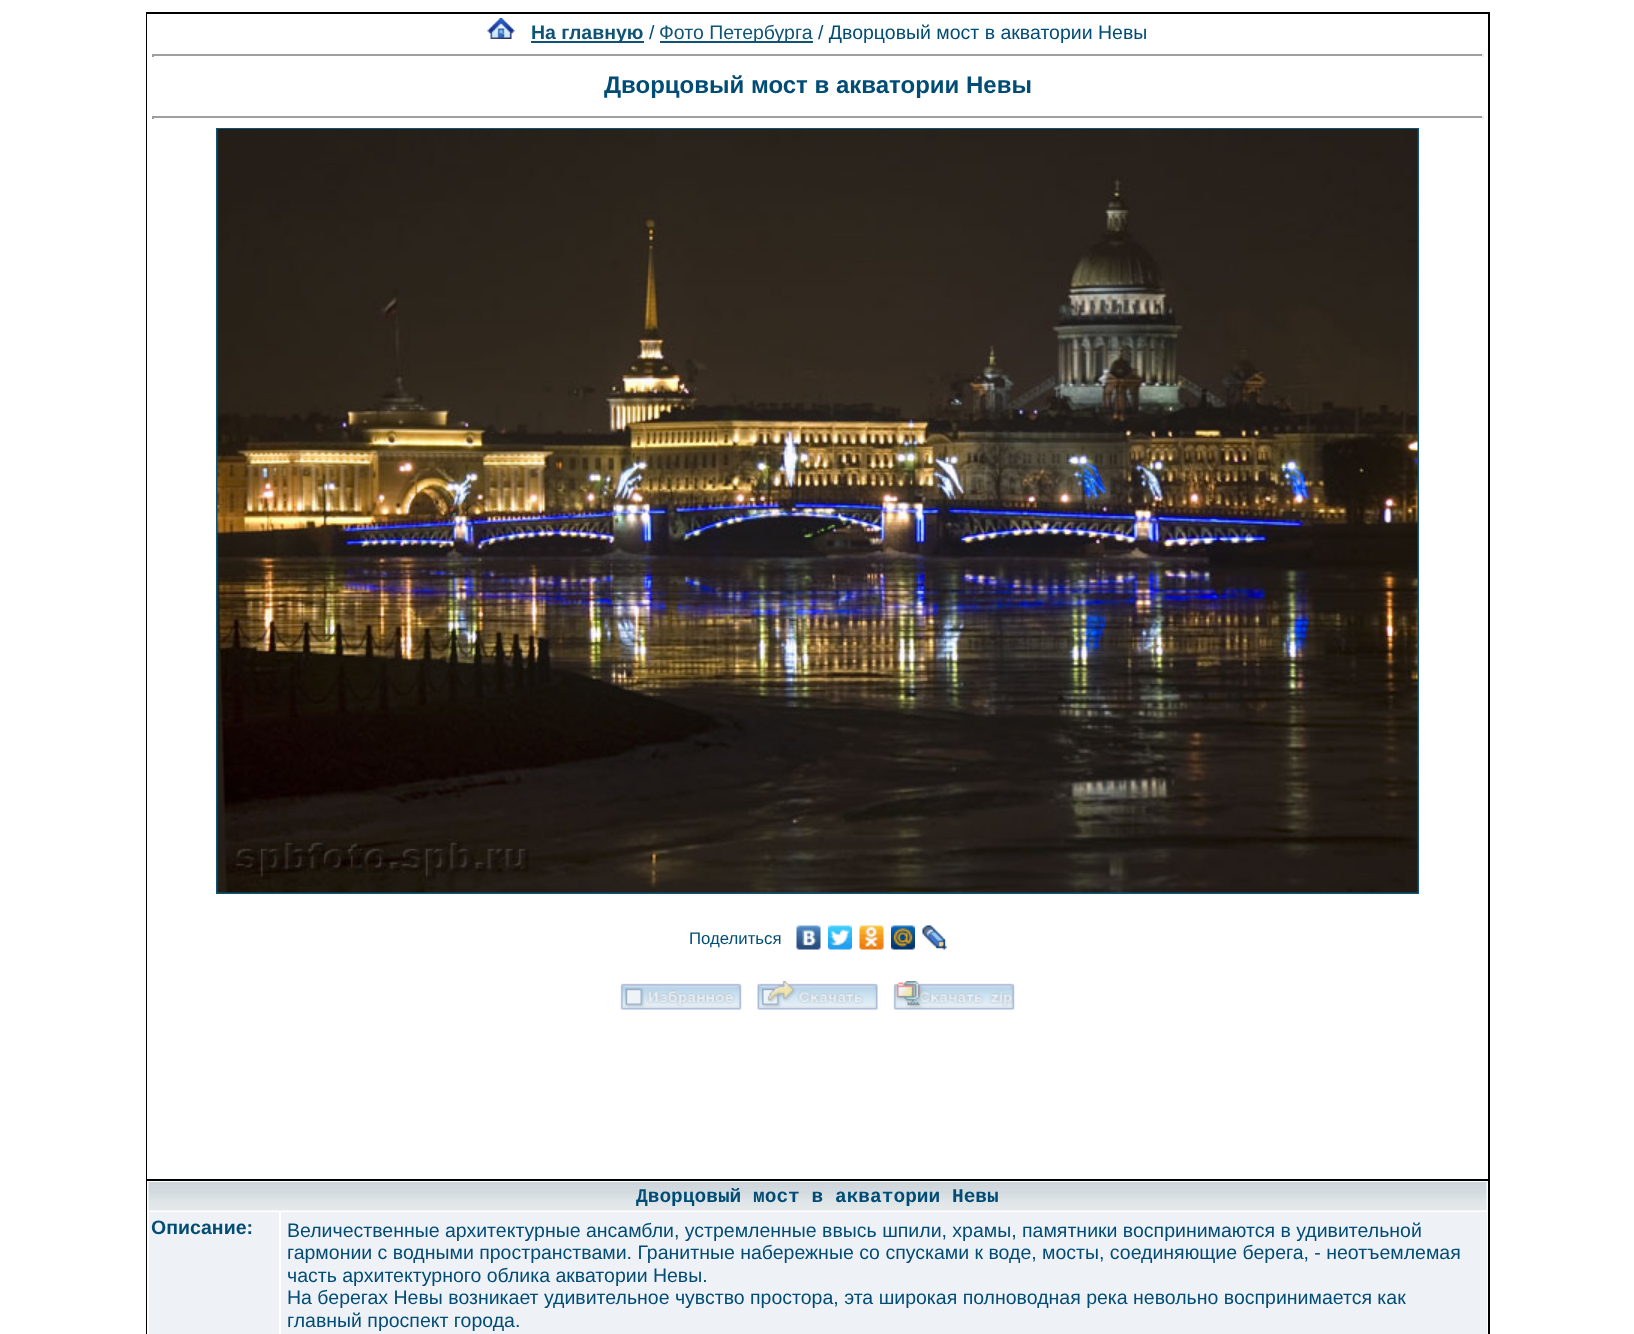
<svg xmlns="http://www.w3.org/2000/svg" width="1634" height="1334">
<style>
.a{font:bold 19.5px Liberation Sans;fill:#0f5475}
.b{font:19.5px Liberation Sans;fill:#004c75}
.c{font:19.5px Liberation Sans;fill:#0f5475}
.d{font:bold 24px Liberation Sans;fill:#004c75}
.e{font:16.75px Liberation Sans;fill:#004c75}
.f{font:bold 19.5px Liberation Mono;fill:#004c75}
.g{font:bold 19.5px Liberation Sans;fill:#004c75}
</style>
<rect width="100%" height="100%" fill="#fff"/>
<path fill="#000" d="M146 12h1344v1322H146z"/>
<path fill="#fff" d="M147 14h1341v1320H147z"/>
<image href="1.png" x="487" y="18" width="28" height="21"/>
<path fill="#0f5475" d="M531 41h113v2H531z"/>
<path fill="#0f5475" d="M660 41h153v2H660z"/>
<path fill="#9f9f9f" d="M152 54h1332v2H152z"/>
<path fill="#eee" d="M1482 54h2v3H1482z"/>
<path fill="#9f9f9f" d="M152 54h2v3H152z"/>
<path fill="#9f9f9f" d="M152 116h1332v2H152z"/>
<path fill="#eee" d="M1482 116h2v3H1482z"/>
<path fill="#9f9f9f" d="M152 116h2v3H152z"/>
<path fill="none" stroke="#0f5475" stroke-width="2" d="M217 129h1201v764H217z"/>
<image href="2.png" x="217" y="129" width="1201" height="764"/>
<image href="3.png" x="796" y="925" width="25" height="25"/>
<image href="4.png" x="828" y="925" width="24" height="25"/>
<image href="5.png" x="859" y="925" width="25" height="25"/>
<image href="6.png" x="891" y="925" width="24" height="25"/>
<image href="7.png" x="922" y="925" width="25" height="25"/>
<image href="8.png" x="620" y="983" width="122" height="27"/>
<image href="9.png" x="757" y="981" width="121" height="29"/>
<image href="10.png" x="893" y="981" width="122" height="29"/>
<path fill="#000" d="M147 1179h1341v2H147z"/>
<image href="11.png" x="148" y="1182" width="1339" height="29"/>
<path fill="#eef1f6" d="M149 1212h130v122H149z"/>
<path fill="#eef1f6" d="M281 1212h1206v122H281z"/>
<text class="a" x="531" y="39">На главную</text>
<text class="b" x="649" y="39">/</text>
<text class="c" x="659" y="39">Фото Петербурга</text>
<text class="b" x="818" y="39">/ Дворцовый мост в акватории Невы</text>
<text class="d" x="604" y="93">Дворцовый мост в акватории Невы</text>
<text class="e" x="689" y="944">Поделиться</text>
<text class="f" x="636" y="1202">Дворцовый мост в акватории Невы</text>
<text class="g" x="151" y="1234">Описание:</text>
<text class="b" x="287" y="1237">Величественные архитектурные ансамбли, устремленные ввысь шпили, храмы, памятники воспринимаются в удивительной</text>
<text class="b" x="287" y="1259">гармонии с водными пространствами. Гранитные набережные со спусками к воде, мосты, соединяющие берега, - неотъемлемая</text>
<text class="b" x="287" y="1282">часть архитектурного облика акватории Невы.</text>
<text class="b" x="287" y="1304">На берегах Невы возникает удивительное чувство простора, эта широкая полноводная река невольно воспринимается как</text>
<text class="b" x="287" y="1327">главный проспект города.</text>
</svg>
